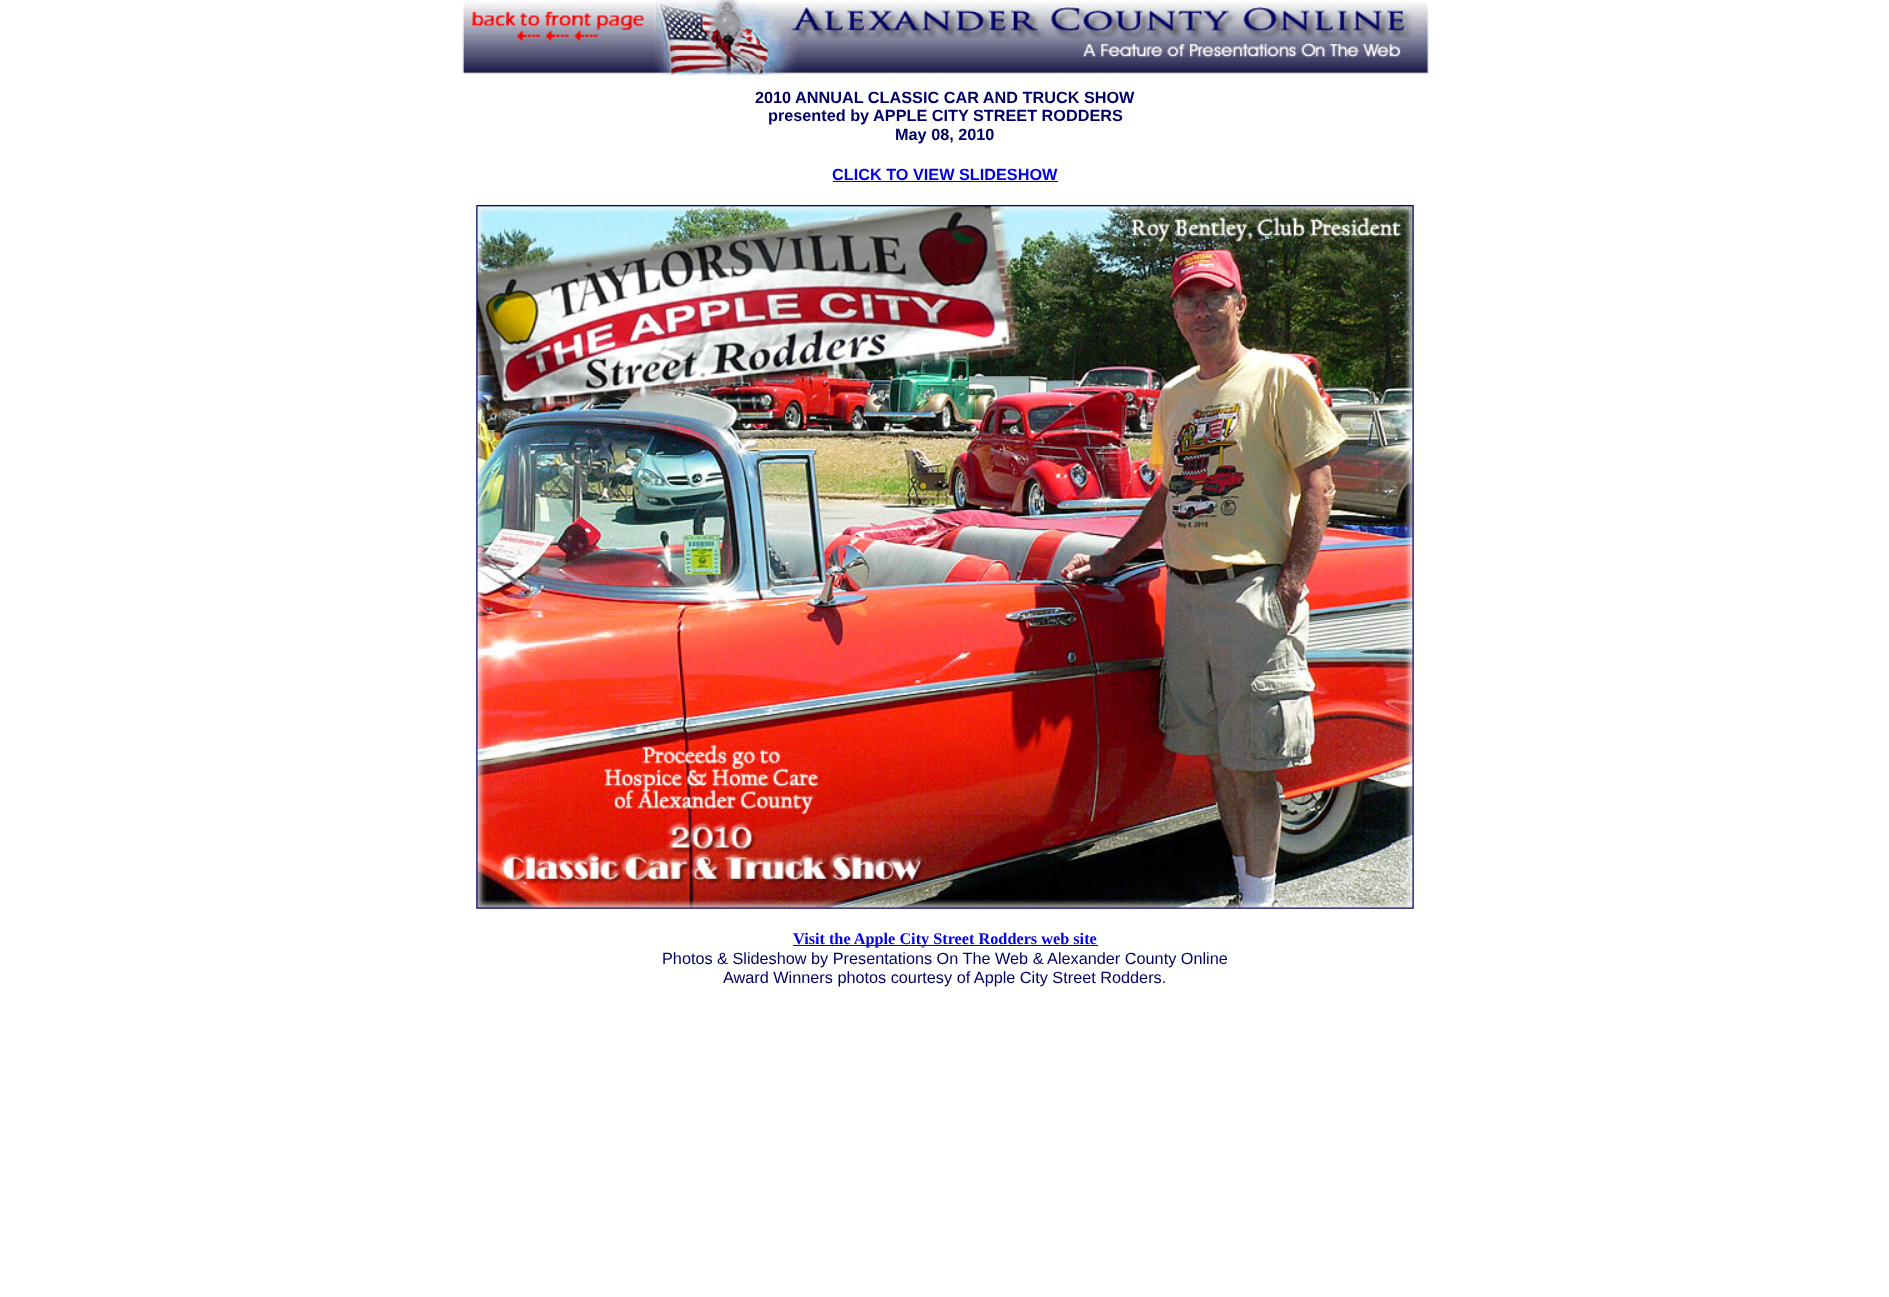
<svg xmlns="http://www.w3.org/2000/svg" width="1889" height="1297">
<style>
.a{font:bold 16.25px Liberation Sans;fill:#006}
.b{font:bold 16.25px Liberation Sans;fill:#00e}
.c{font:bold 16.25px Liberation Serif;fill:#00e}
.d{font:16.25px Liberation Sans;fill:#006}
</style>
<rect width="100%" height="100%" fill="#fff"/>
<image href="1.png" x="462" y="0" width="967" height="75"/>
<path fill="#00e" d="M833 181h225v1H833z"/>
<image href="2.png" x="476" y="205" width="938" height="704"/>
<path fill="#00e" d="M793 945h305v1H793z"/>
<text class="a" x="755" y="103">2010</text>
<text class="a" x="795" y="103">ANNUAL CLASSIC CAR AND TRUCK SHOW</text>
<text class="a" x="768" y="121">presented by APPLE CITY STREET RODDERS</text>
<text class="a" x="895" y="140">May 08, 2010</text>
<text class="b" x="832" y="180">CLICK TO VIEW SLIDESHOW</text>
<text class="c" x="793" y="944">Visit the Apple City Street Rodders web site</text>
<text class="d" x="662" y="964">Photos &amp; Slideshow by Presentations On The Web &amp; Alexander County Online</text>
<text class="d" x="723" y="983">Award Winners photos courtesy of Apple City Street Rodders.</text>
</svg>
